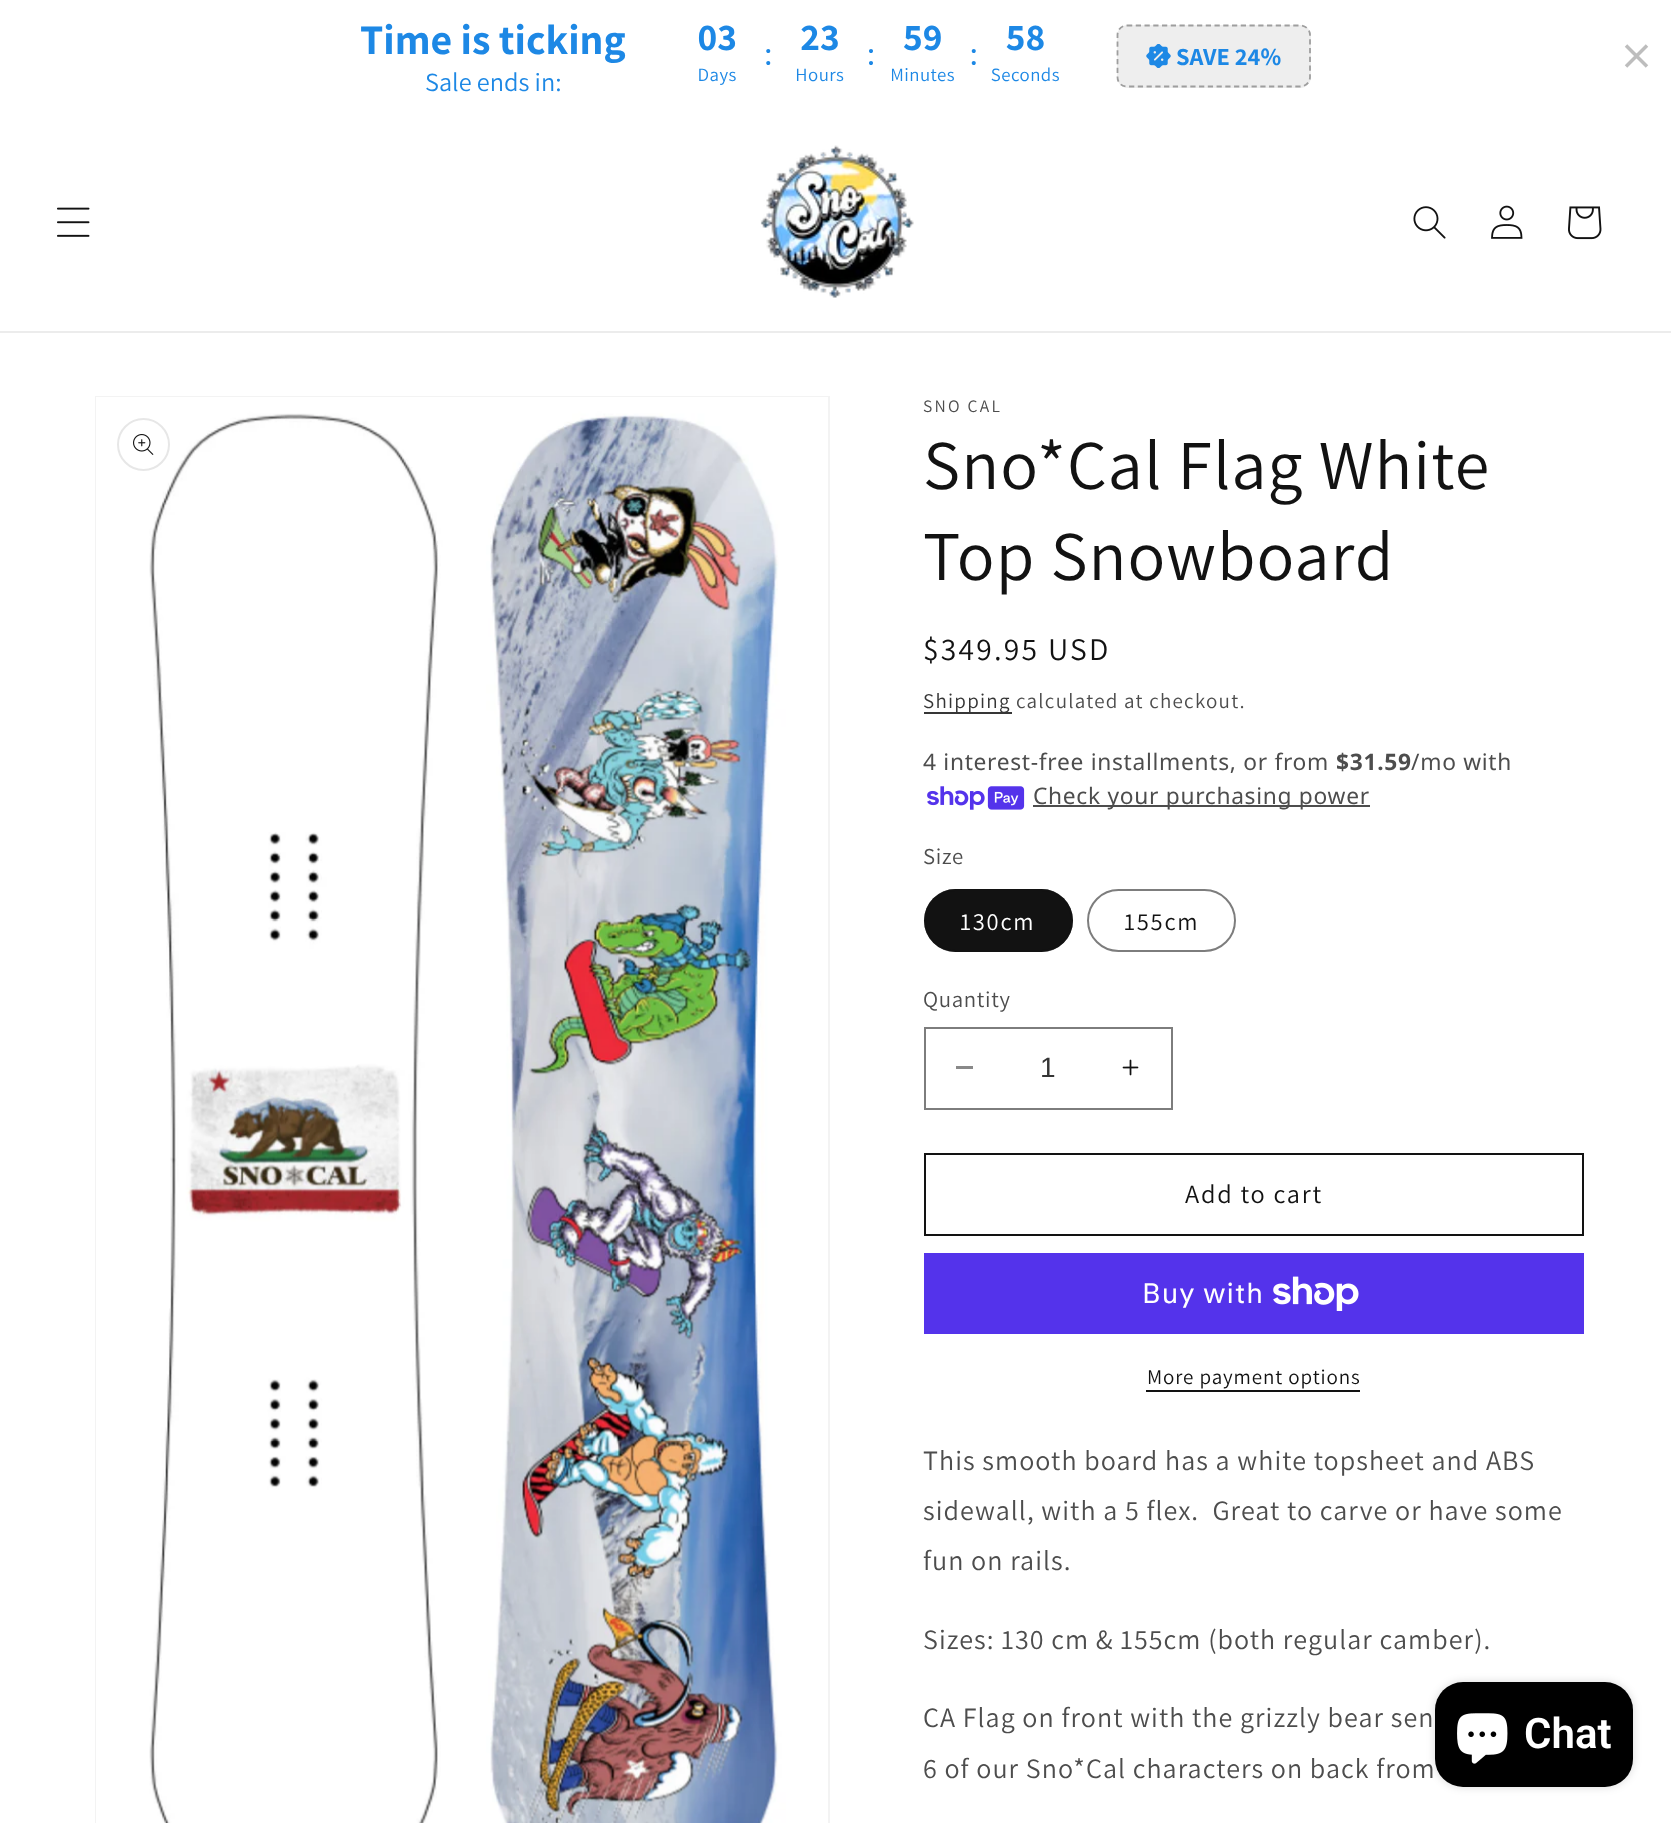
<svg xmlns="http://www.w3.org/2000/svg" width="1671" height="1823">
<style>
.a{font:bold 42px Assistant;fill:#1d88e5}
.b{font:26.25px Assistant;fill:#1d88e5}
.c{font:bold 24.5px Assistant;fill:#1d88e5}
.d{font:17.5px Assistant;letter-spacing:2.25px;fill:#4d4d4d}
.e{font:70px Assistant;letter-spacing:1.05px;fill:#121212}
.f{font:31.5px Assistant;letter-spacing:2.25px;fill:#121212}
.g{font:21px Assistant;letter-spacing:1.25px;fill:#353535}
.h{font:21px Assistant;letter-spacing:1.25px;fill:#4d4d4d}
.i{font:22.75px Noto Sans;letter-spacing:0.7px;fill:#4d4d4d}
.j{font:bold 22.75px Noto Sans;letter-spacing:0.7px;fill:#4d4d4d}
.k{font:22.75px Assistant;letter-spacing:0.7px;fill:#4d4d4d}
.l{font:24.5px Assistant;letter-spacing:1.75px;fill:#fff}
.m{font:24.5px Assistant;letter-spacing:1.75px;fill:#121212}
.n{font:28px Liberation Sans;fill:#353535}
.o{font:26.25px Assistant;letter-spacing:1.75px;fill:#121212}
.p{font:28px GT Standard;letter-spacing:1.05px;fill:#fff}
.q{font:21px Assistant;letter-spacing:0.9px;fill:#121212}
.r{font:28px Assistant;letter-spacing:1.05px;fill:#4d4d4d}
.s{font:600 42px Roboto;fill:#fff}
</style>
<rect width="100%" height="100%" fill="#fff"/>
<image href="1.png" x="698" y="25" width="361" height="60"/>
<rect fill="#eee" x="1117" y="25" width="194" height="63" rx="11"/>
<path fill="none" stroke="#9e9e9e" stroke-width="1.8" stroke-dasharray="5.25 3.5" d="M1127 25.5h173c5.5 0 10 4 10 9.5v42c0 5.5-4.5 9.5-10 9.5h-173c-5.5 0-9.5-4-9.5-9.5v-42c0-5.5 4-9.5 9.5-9.5z"/>
<image href="2.png" x="1146" y="44" width="25" height="24"/>
<path fill="none" stroke="#bdbdbd" stroke-width="3.5" d="M1647 45.5l-21 21m21 0l-21-21"/>
<path fill="#ececec" d="M0 331h1671v2H0z"/>
<image href="3.png" x="57" y="207" width="33" height="30"/>
<image href="4.png" x="760" y="145" width="154" height="153"/>
<image href="5.png" x="1413" y="206" width="33" height="33"/>
<image href="6.png" x="1491" y="205" width="32" height="34"/>
<image href="7.png" x="1568" y="206" width="34" height="34"/>
<path fill="none" stroke="#f3f3f3" stroke-width="2" d="M96 397h733v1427H96z"/>
<image href="8.png" x="96" y="397" width="732" height="1426"/>
<circle fill="none" stroke="#e7e7e7" stroke-width="2" cx="143.5" cy="444.5" r="25.5"/>
<image href="9.png" x="133" y="434" width="21" height="21"/>
<path fill="#363636" d="M924 712h88v2H924z"/>
<image href="10.png" x="927" y="786" width="98" height="24"/>
<path fill="#4d4d4d" d="M1033 805h337v2H1033z"/>
<rect fill="#121212" x="924" y="889" width="149" height="63" rx="31.5"/>
<rect fill="none" stroke="#1212128c" stroke-width="2" x="925" y="890" width="147" height="61" rx="30.5"/>
<rect fill="none" stroke="#7d7d7d" stroke-width="2" x="1088" y="890" width="147" height="61" rx="30.5"/>
<path fill="#898989" d="M956 1066h17v3H956z"/>
<image href="11.png" x="1122" y="1059" width="17" height="17"/>
<path fill="none" stroke="#7d7d7d" stroke-width="2" d="M925 1028h247v81H925z"/>
<path fill="none" stroke="#121212" stroke-width="2" d="M925 1154h658v81H925z"/>
<path fill="#5433eb" d="M924 1253h660v81H924z"/>
<image href="12.png" x="1273" y="1276" width="86" height="35"/>
<path fill="#121212" d="M1146 1390h214v2H1146z"/>
<rect fill="#00000026" filter="blur(4.5px)" x="1435" y="1682" width="198" height="105" rx="28"/>
<rect fill="#000" x="1435" y="1682" width="198" height="105" rx="28"/>
<image href="13.png" x="1457" y="1713" width="51" height="51"/>
<text class="a" x="360" y="54">Time is ticking</text>
<text class="b" x="425" y="91">Sale ends in:</text>
<text class="c" x="1176" y="65">SAVE 24%</text>
<text class="d" x="923" y="412">SNO CAL</text>
<text class="e" x="923" y="489">Sno*Cal Flag White</text>
<text class="e" x="923" y="580">Top Snowboard</text>
<text class="f" x="923" y="660">$349.95 USD</text>
<text class="g" x="923" y="708">Shipping</text>
<text class="h" x="1016" y="708">calculated at checkout.</text>
<text class="i" x="923" y="770">4 interest-free installments, or from</text>
<text class="j" x="1336" y="770">$31.59</text>
<text class="i" x="1411" y="770">/mo with</text>
<text class="i" x="1033" y="804">Check your purchasing power</text>
<text class="k" x="923" y="864">Size</text>
<text class="l" x="960" y="930">130cm</text>
<text class="m" x="1124" y="930">155cm</text>
<text class="k" x="923" y="1007">Quantity</text>
<text class="n" x="1040" y="1077">1</text>
<text class="o" x="1185" y="1203">Add to cart</text>
<text class="p" x="1142" y="1303">Buy with</text>
<text class="q" x="1147" y="1384">More payment options</text>
<text class="r" x="923" y="1470">This smooth board has a white topsheet and ABS</text>
<text class="r" xml:space="preserve" x="923" y="1520">sidewall, with a 5 flex.  Great to carve or have some</text>
<text class="r" x="923" y="1570">fun on rails.</text>
<text class="r" x="923" y="1649">Sizes: 130 cm &amp; 155cm (both regular camber).</text>
<text class="r" x="923" y="1727">CA Flag on front with the grizzly bear sen</text>
<text class="r" x="923" y="1778">6 of our Sno*Cal characters on back from</text>
<text class="s" x="1524" y="1748">Chat</text>
</svg>
